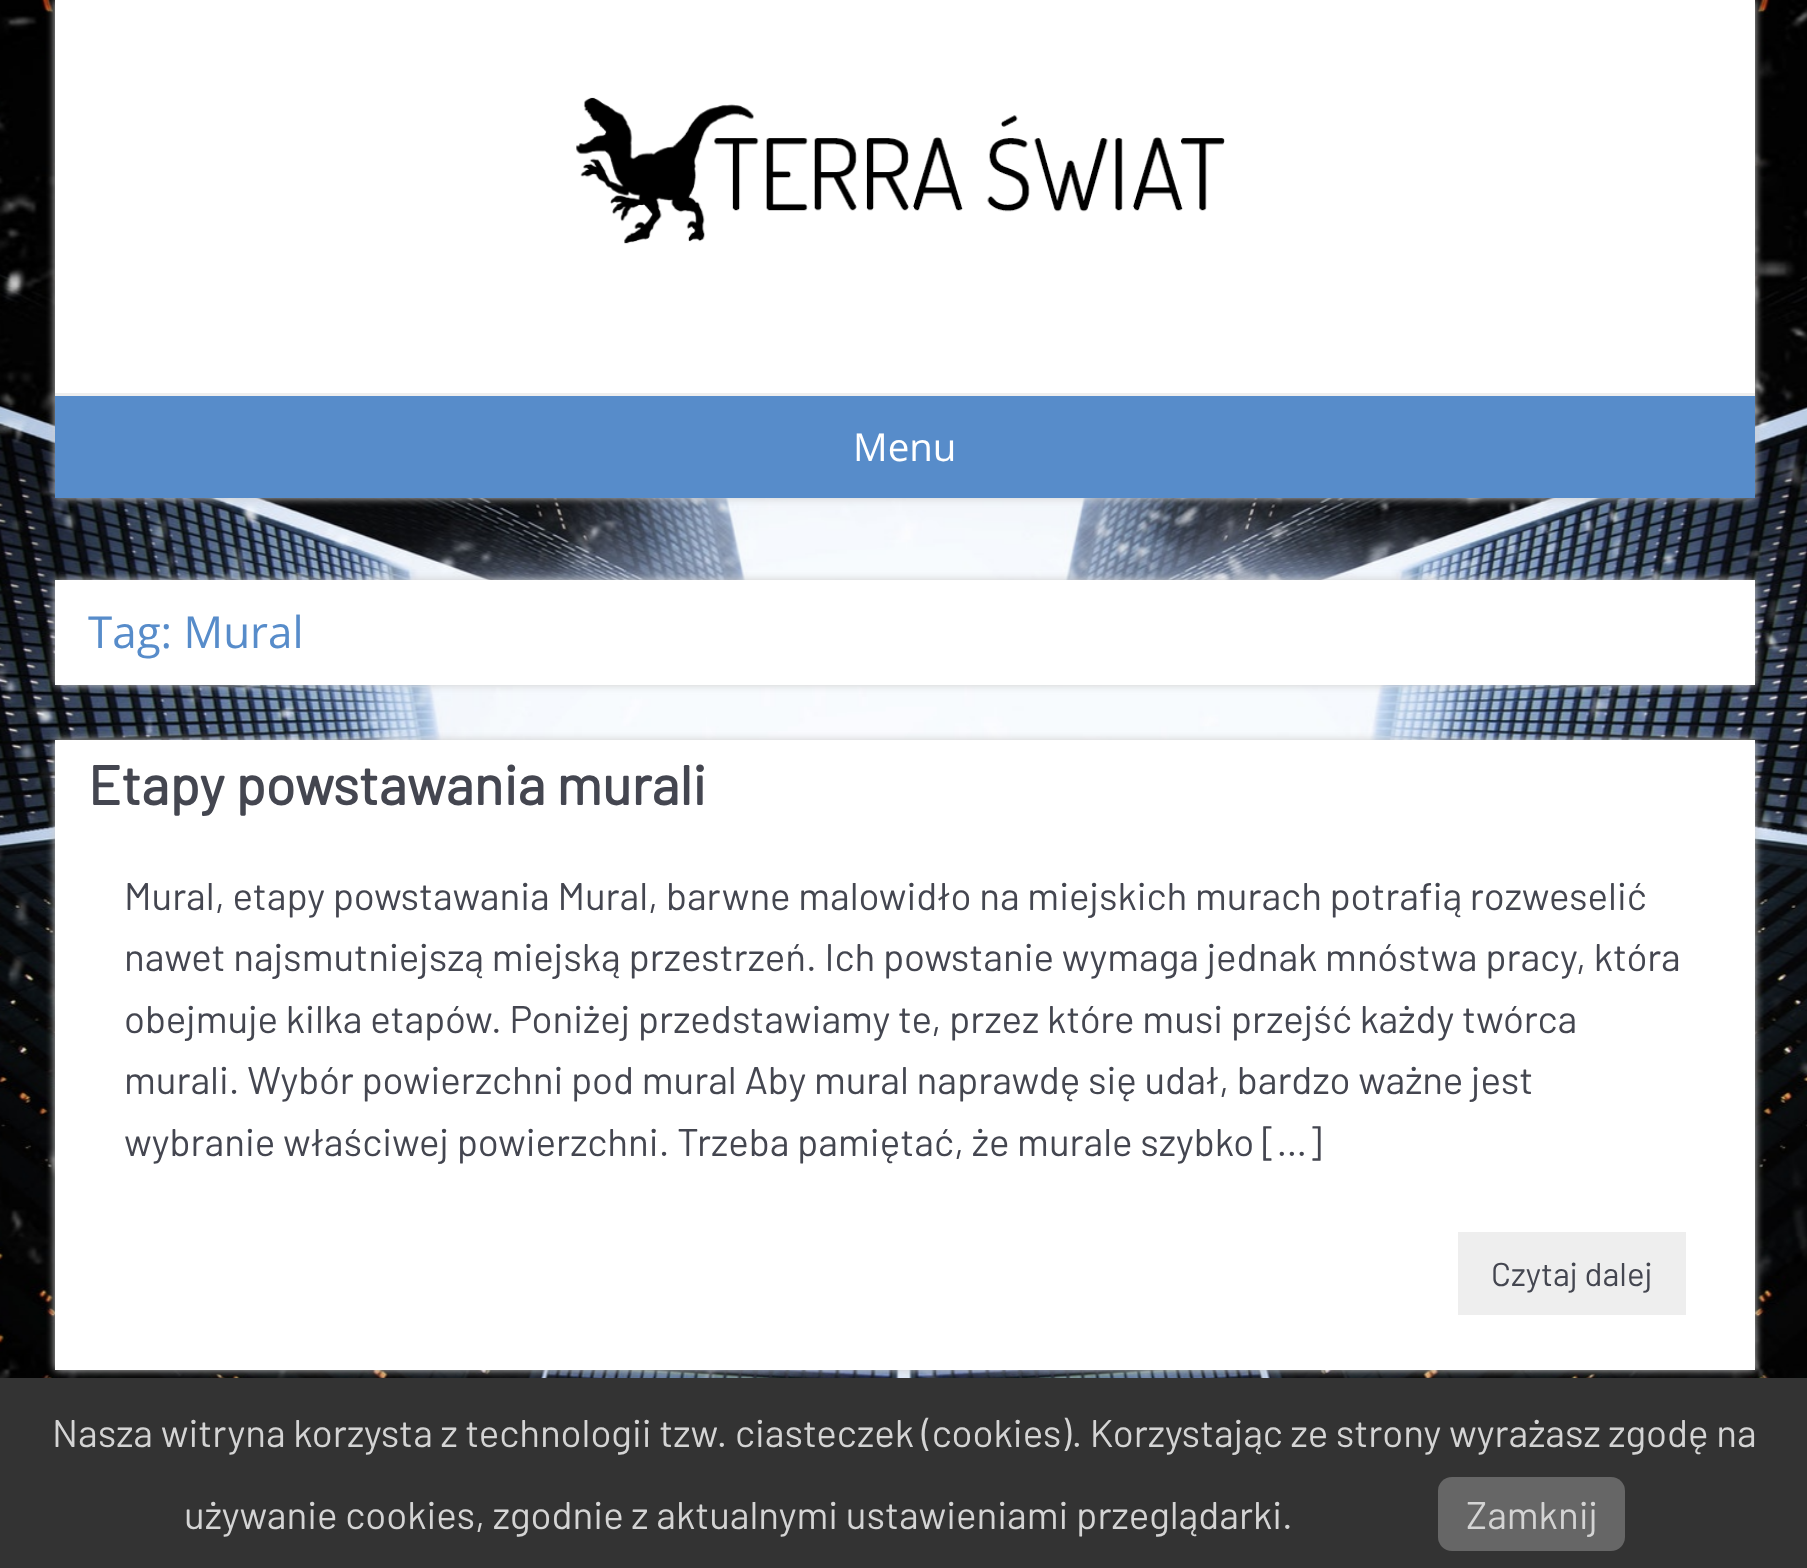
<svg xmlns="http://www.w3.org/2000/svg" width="1807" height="1568">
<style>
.a{font:38.5px Open Sans;fill:#fff}
.b{font:44px Open Sans;fill:#578cca}
.c{font:bold 55px Barlow;fill:#444650}
.d{font:38.5px Barlow;fill:#444650}
.e{font:33px Barlow;fill:#444650}
.f{font:38.5px Barlow;fill:#d4d4d4}
</style>
<rect width="100%" height="100%" fill="#fff"/>
<image href="1.png" x="0" y="0" width="1807" height="1378"/>
<path fill="#ccc" filter="blur(4px)" d="M55 0h1700v498H55z"/>
<path fill="#fff" d="M55 0h1700v393H55z"/>
<image href="2.png" x="576" y="97" width="649" height="147"/>
<path fill="#eee" d="M55 393h1700v3H55z"/>
<path fill="#578cca" d="M55 396h1700v102H55z"/>
<path fill="#ccc" filter="blur(4px)" d="M55 580h1700v105H55z"/>
<path fill="#fff" d="M55 580h1700v105H55z"/>
<path fill="#ccc" filter="blur(4px)" d="M55 740h1700v630H55z"/>
<path fill="#fff" d="M55 740h1700v630H55z"/>
<path fill="#eee" d="M1458 1232h228v83H1458z"/>
<path fill="#333" d="M0 1378h1807v190H0z"/>
<rect fill="#666" x="1438" y="1477" width="187" height="74" rx="14"/>
<text class="a" x="853" y="461">Menu</text>
<text class="b" x="88" y="648">Tag: Mural</text>
<text class="c" x="88" y="805">Etapy powstawania murali</text>
<text class="d" x="124" y="910">Mural, etapy powstawania Mural, barwne malowidło na miejskich murach potrafią rozweselić</text>
<text class="d" x="124" y="971">nawet najsmutniejszą miejską przestrzeń. Ich powstanie wymaga jednak mnóstwa pracy, która</text>
<text class="d" x="124" y="1033">obejmuje kilka etapów. Poniżej przedstawiamy te, przez które musi przejść każdy twórca</text>
<text class="d" x="124" y="1094">murali. Wybór powierzchni pod mural Aby mural naprawdę się udał, bardzo ważne jest</text>
<text class="d" x="124" y="1156">wybranie właściwej powierzchni. Trzeba pamiętać, że murale szybko […]</text>
<text class="e" x="1491" y="1286">Czytaj dalej</text>
<text class="f" x="52" y="1447">Nasza witryna korzysta z technologii tzw. ciasteczek (cookies). Korzystając ze strony wyrażasz zgodę na</text>
<text class="f" x="184" y="1529">używanie cookies, zgodnie z aktualnymi ustawieniami przeglądarki.</text>
<text class="f" x="1466" y="1529">Zamknij</text>
</svg>
